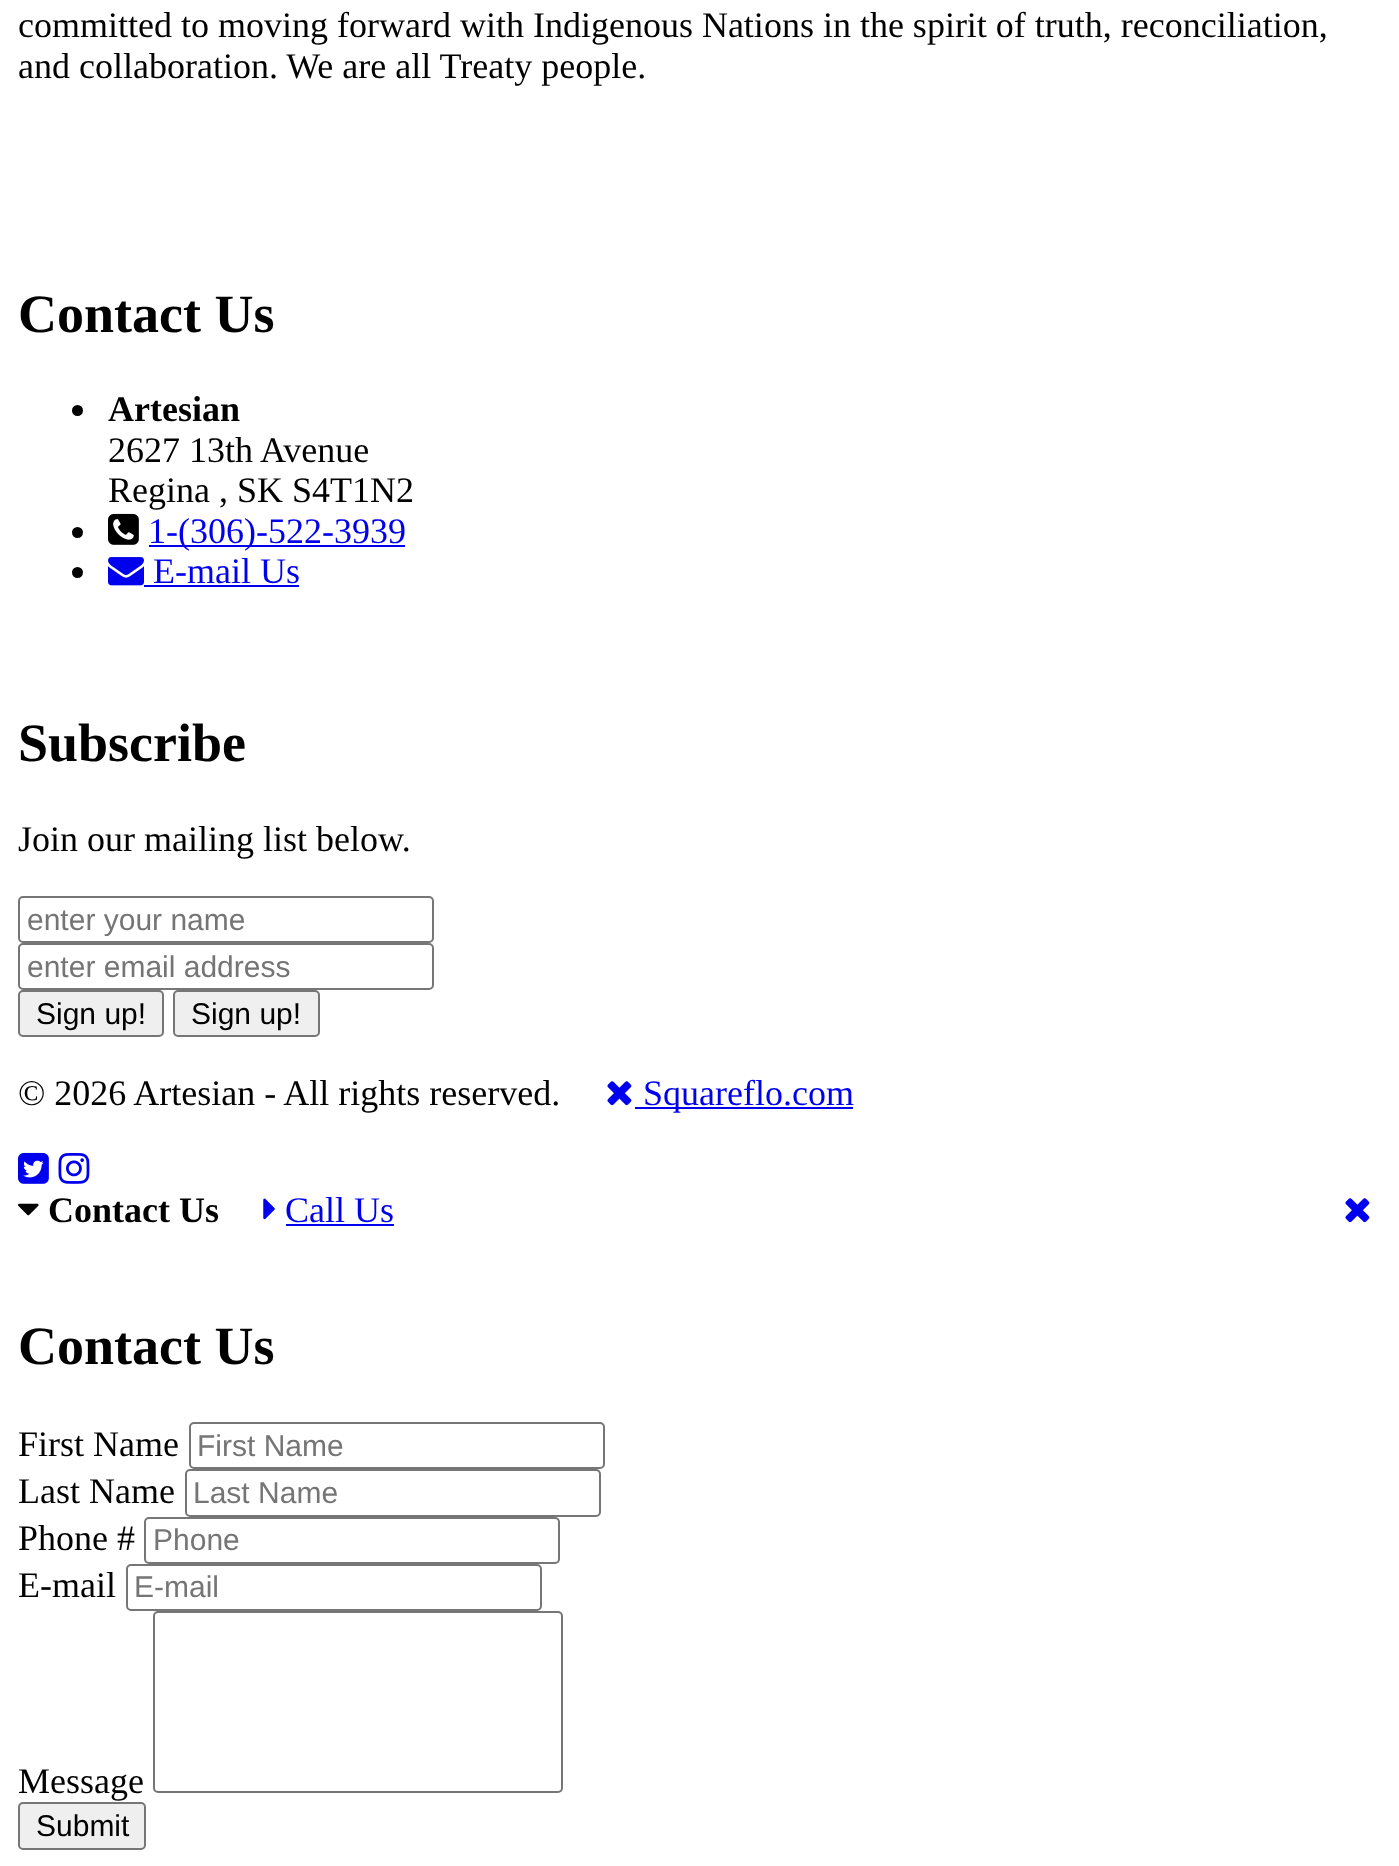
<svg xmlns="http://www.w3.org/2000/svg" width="1399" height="1866">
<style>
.a{font:36px Liberation Serif;fill:#000}
.b{font:bold 54px Liberation Serif;fill:#000}
.c{font:bold 36px Liberation Serif;fill:#000}
.d{font:36px Liberation Serif;fill:#00e}
.e{font:30px Liberation Sans;fill:#757575}
.f{font:30px Liberation Sans;fill:#000}
</style>
<defs>
<clipPath id="clip1"><path d="M27 902h398v34H27z"/></clipPath>
</defs>
<rect width="100%" height="100%" fill="#fff"/>
<circle fill="#000" cx="77.5" cy="410.5" r="5.5"/>
<circle fill="#000" cx="77.5" cy="532.5" r="5.5"/>
<image href="1.png" x="108" y="513" width="31" height="32"/>
<path fill="#00e" d="M149 545h256v2H149z"/>
<circle fill="#000" cx="77.5" cy="572.5" r="5.5"/>
<image href="2.png" x="108" y="557" width="36" height="29"/>
<path fill="#00e" d="M144 585h155v2H144z"/>
<rect fill="none" stroke="#767676" stroke-width="2" x="19" y="897" width="414" height="45" rx="4"/>
<rect fill="none" stroke="#767676" stroke-width="2" x="19" y="944" width="414" height="45" rx="4"/>
<rect fill="#efefef" stroke="#767676" stroke-width="2" x="19" y="991" width="144" height="45" rx="4"/>
<rect fill="#efefef" stroke="#767676" stroke-width="2" x="174" y="991" width="145" height="45" rx="4"/>
<image href="3.png" x="607" y="1081" width="25" height="25"/>
<path fill="#00e" d="M635 1107h218v2H635z"/>
<image href="4.png" x="18" y="1152" width="31" height="32"/>
<image href="5.png" x="58" y="1153" width="32" height="31"/>
<image href="6.png" x="18" y="1203" width="21" height="13"/>
<image href="7.png" x="263" y="1198" width="12" height="22"/>
<path fill="#00e" d="M286 1224h108v2H286z"/>
<rect fill="none" stroke="#767676" stroke-width="2" x="190" y="1423" width="414" height="45" rx="4"/>
<rect fill="none" stroke="#767676" stroke-width="2" x="186" y="1470" width="414" height="46" rx="4"/>
<rect fill="none" stroke="#767676" stroke-width="2" x="145" y="1518" width="414" height="45" rx="4"/>
<rect fill="none" stroke="#767676" stroke-width="2" x="127" y="1565" width="414" height="45" rx="4"/>
<rect fill="none" stroke="#767676" stroke-width="2" x="154" y="1612" width="408" height="180" rx="4"/>
<rect fill="#efefef" stroke="#767676" stroke-width="2" x="19" y="1803" width="126" height="46" rx="4"/>
<image href="3.png" x="1345" y="1198" width="25" height="25"/>
<text class="a" x="18" y="37">committed to moving forward with Indigenous Nations in the spirit of truth, reconciliation,</text>
<text class="a" x="18" y="78">and collaboration. We are all Treaty people.</text>
<text class="b" x="18" y="332">Contact Us</text>
<text class="c" x="108" y="421">Artesian</text>
<text class="a" x="108" y="462">2627 13th Avenue</text>
<text class="a" x="108" y="502">Regina , SK S4T1N2</text>
<text class="d" x="148" y="543">1-(306)-522-3939</text>
<text class="d" x="153" y="583">E-mail Us</text>
<text class="b" x="18" y="761">Subscribe</text>
<text class="a" x="18" y="851">Join our mailing list below.</text>
<g clip-path="url(#clip1)">
<text class="e" x="27" y="930">enter your name</text>
</g>
<text class="e" x="27" y="977">enter email address</text>
<text class="f" x="36" y="1024">Sign up!</text>
<text class="f" x="191" y="1024">Sign up!</text>
<text class="a" x="18" y="1105">© 2026 Artesian - All rights reserved.</text>
<text class="d" x="643" y="1105">Squareflo.com</text>
<text class="c" x="48" y="1222">Contact Us</text>
<text class="d" x="285" y="1222">Call Us</text>
<text class="b" x="18" y="1364">Contact Us</text>
<text class="a" x="18" y="1456">First Name</text>
<text class="e" x="197" y="1456">First Name</text>
<text class="a" x="18" y="1503">Last Name</text>
<text class="e" x="193" y="1503">Last Name</text>
<text class="a" x="18" y="1550">Phone #</text>
<text class="e" x="153" y="1550">Phone</text>
<text class="a" x="18" y="1597">E-mail</text>
<text class="e" x="134" y="1597">E-mail</text>
<text class="a" x="18" y="1793">Message</text>
<text class="f" x="36" y="1836">Submit</text>
</svg>
